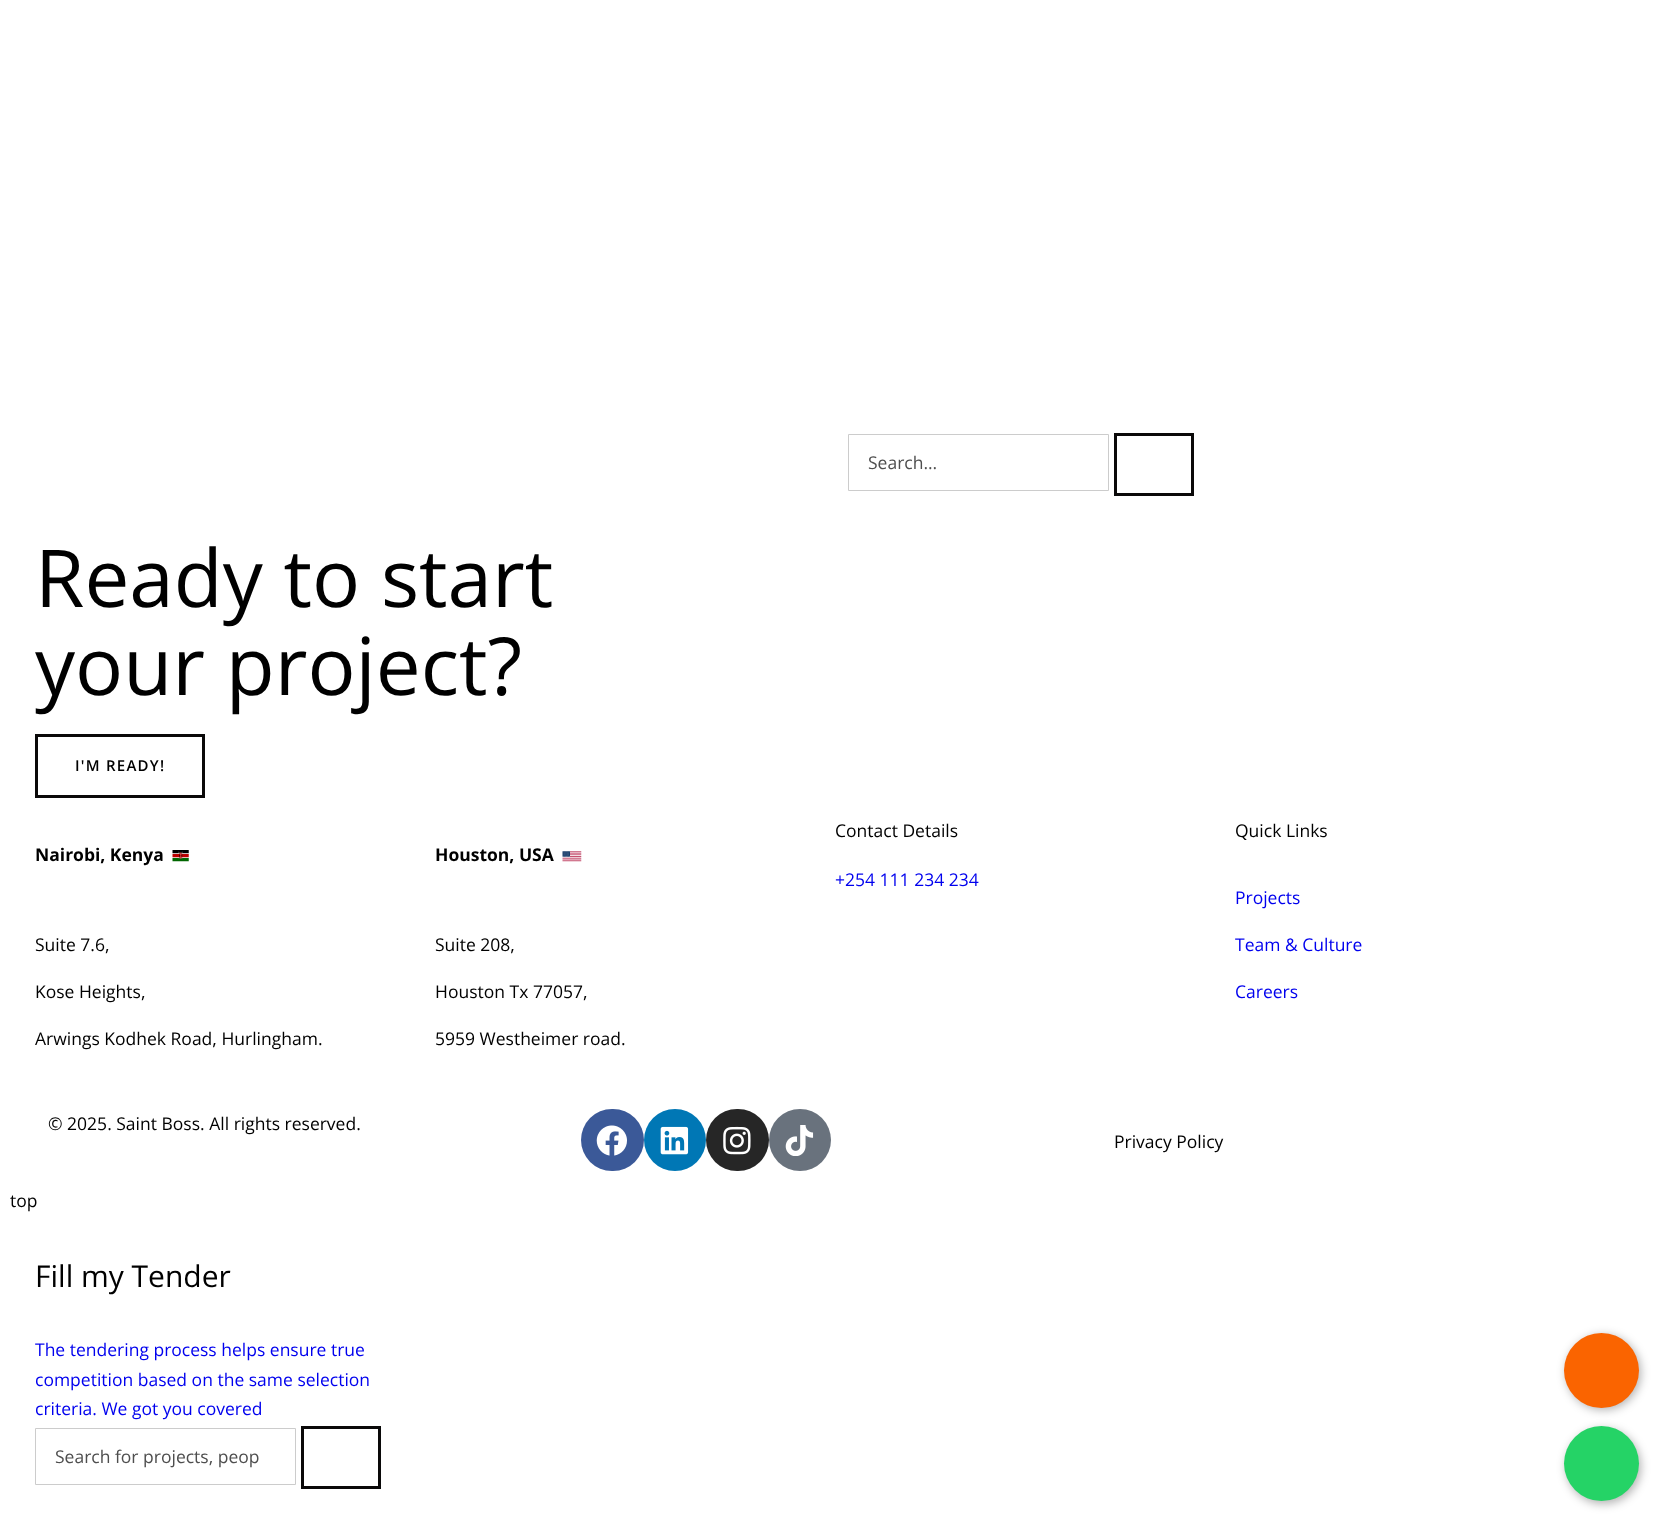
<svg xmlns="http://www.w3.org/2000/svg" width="1669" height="1532">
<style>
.a{font:17.5px Open Sans;fill:#4e4e4e}
.b{font:80px Open Sans;fill:#000}
.c{font:600 15px Open Sans;letter-spacing:1.25px;fill:#000}
.d{font:bold 17.5px Open Sans;fill:#000}
.e{font:17.5px Open Sans;fill:#000}
.f{font:17.5px Open Sans;fill:#00e}
.g{font:30px Open Sans;fill:#000}
</style>
<rect width="100%" height="100%" fill="#fff"/>
<path fill="none" stroke="#ccc" d="M848.5 434.5h260v56H848.5z"/>
<path fill="none" stroke="#0a0909" stroke-width="3" d="M1115.5 434.5h77v60H1115.5z"/>
<path fill="none" stroke="#0a0909" stroke-width="3" d="M36.5 735.5h167v61H36.5z"/>
<image href="1.png" x="172" y="850" width="17" height="12"/>
<image href="2.png" x="562" y="851" width="20" height="11"/>
<rect fill="#3b5998" x="581" y="1109" width="63" height="62" rx="31"/>
<image href="3.png" x="596" y="1125" width="31" height="31"/>
<circle fill="#0077b5" cx="675" cy="1140" r="31"/>
<image href="4.png" x="660" y="1126" width="29" height="29"/>
<rect fill="#262626" x="706" y="1109" width="63" height="62" rx="31"/>
<image href="5.png" x="723" y="1126" width="28" height="29"/>
<circle fill="#69727d" cx="800" cy="1140" r="31"/>
<image href="6.png" x="785" y="1125" width="29" height="31"/>
<rect fill="#0000004d" filter="blur(5px)" x="1566" y="1335" width="75" height="75" rx="37.5"/>
<circle fill="#fa6400" cx="1601.5" cy="1370.5" r="37.5"/>
<rect fill="#0000004d" filter="blur(5px)" x="1566" y="1429" width="75" height="75" rx="37.5"/>
<circle fill="#25d366" cx="1601.5" cy="1463.5" r="37.5"/>
<path fill="none" stroke="#ccc" d="M35.5 1428.5h260v56H35.5z"/>
<path fill="none" stroke="#0a0909" stroke-width="3" d="M302.5 1427.5h77v60H302.5z"/>
<text class="a" x="868" y="469">Search...</text>
<text class="b" x="35" y="607">Ready to start</text>
<text class="b" x="35" y="695">your project?</text>
<text class="c" x="75" y="771">I'M READY!</text>
<text class="d" x="35" y="861">Nairobi, Kenya</text>
<text class="e" x="35" y="951">Suite 7.6,</text>
<text class="e" x="35" y="998">Kose Heights,</text>
<text class="e" x="35" y="1045">Arwings Kodhek Road, Hurlingham.</text>
<text class="d" x="435" y="861">Houston, USA</text>
<text class="e" x="435" y="951">Suite 208,</text>
<text class="e" x="435" y="998">Houston Tx 77057,</text>
<text class="e" x="435" y="1045">5959 Westheimer road.</text>
<text class="e" x="835" y="837">Contact Details</text>
<text class="f" x="835" y="886">+254 111 234 234</text>
<text class="e" x="1235" y="837">Quick Links</text>
<text class="f" x="1235" y="904">Projects</text>
<text class="f" x="1235" y="951">Team &amp; Culture</text>
<text class="f" x="1235" y="998">Careers</text>
<text class="e" x="48" y="1130">© 2025. Saint Boss. All rights reserved.</text>
<text class="e" x="1114" y="1148">Privacy Policy</text>
<text class="e" x="10" y="1207">top</text>
<text class="g" x="35" y="1287">Fill my Tender</text>
<text class="f" x="35" y="1356">The tendering process helps ensure true</text>
<text class="f" x="35" y="1386">competition based on the same selection</text>
<text class="f" x="35" y="1415">criteria. We got you covered</text>
<text class="a" x="55" y="1463">Search for projects, peop</text>
</svg>
